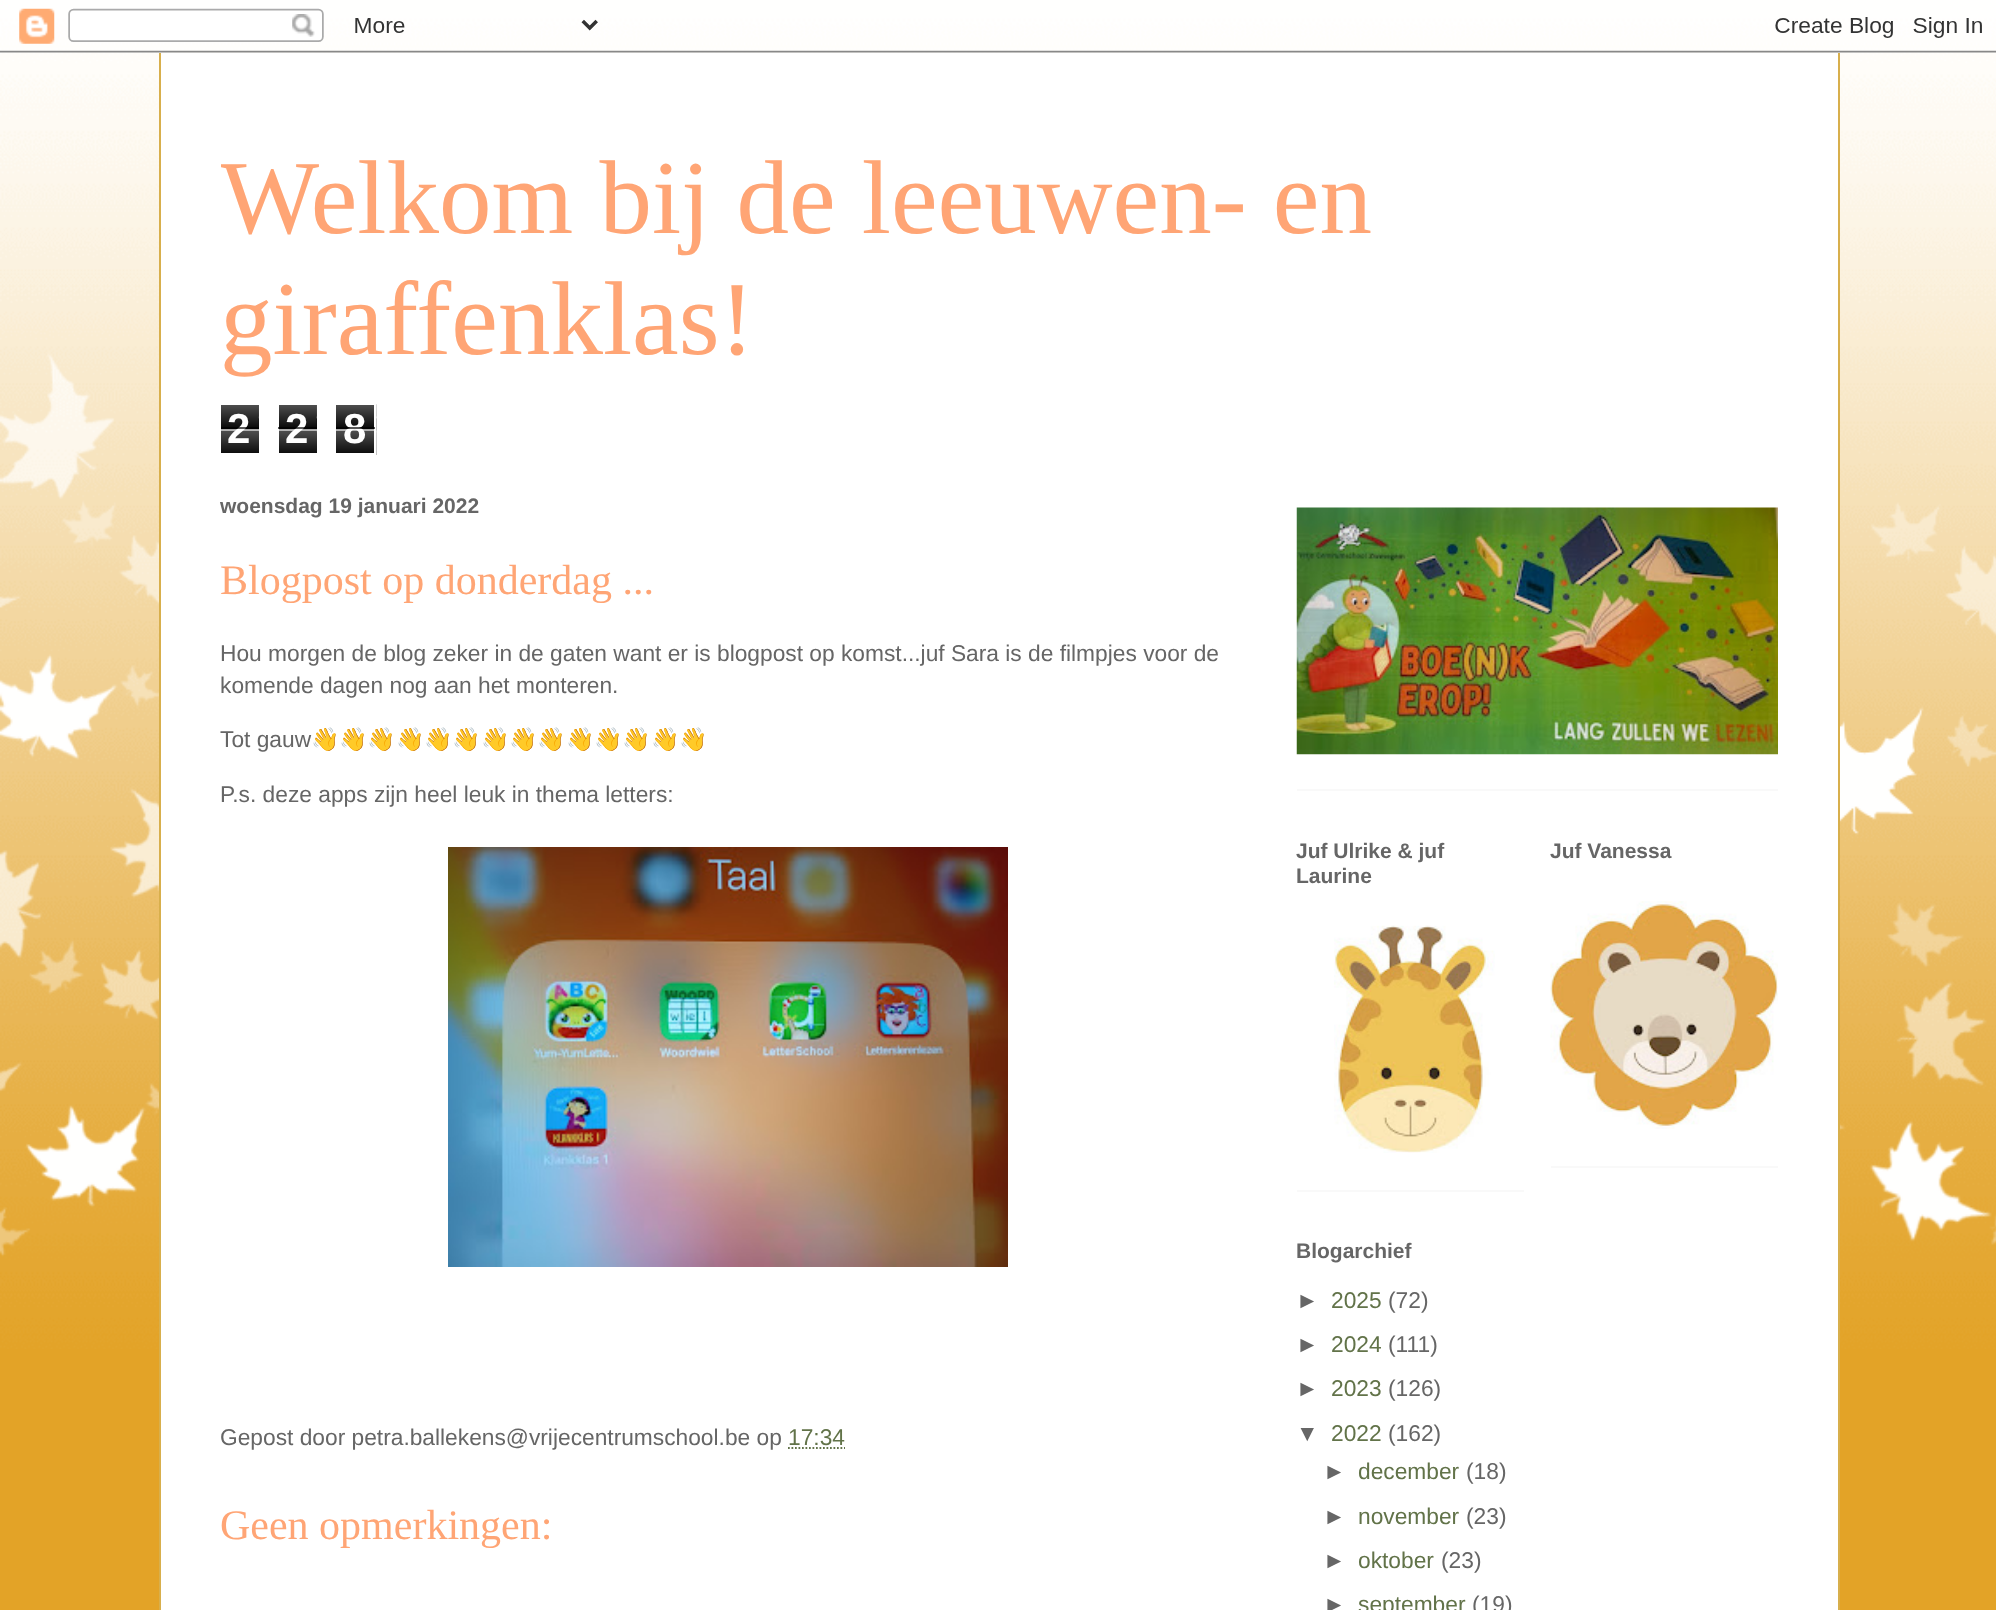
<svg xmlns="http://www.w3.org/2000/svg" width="1996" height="1610">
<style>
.a{font:105px Liberation Serif;fill:#ffa575}
.b{font:bold 42px Liberation Sans;fill:#fff}
.c{font:bold 21px Liberation Sans;fill:#666}
.d{font:42px Liberation Serif;fill:#ffa575}
.e{font:22.75px Liberation Sans;fill:#666}
.f{font:22.75px Noto Color Emoji;fill:#666}
.g{font:22.75px Liberation Sans;fill:#627349}
</style>
<defs>
<clipPath id="clip1"><path d="M221 100h1557v297H221z"/></clipPath>
</defs>
<rect width="100%" height="100%" fill="#e3a327"/>
<image href="1.png" x="0" y="0" width="1996" height="1349"/>
<image href="2.png" x="0" y="8" width="1996" height="45"/>
<path fill="#fff" d="M161 53h1677v1557H161z"/>
<path fill="#d8af4c" d="M1838 53h2v1557H1838z"/>
<path fill="#d8af4c" d="M159 53h2v1557H159z"/>
<image href="3.png" x="221" y="405" width="38" height="48"/>
<image href="4.png" x="279" y="405" width="38" height="48"/>
<image href="5.png" x="336" y="404" width="41" height="51"/>
<path fill="none" stroke="#fff" stroke-width="2" d="M335 404h40v50H335z"/>
<image href="6.png" x="448" y="847" width="560" height="420"/>
<path fill="none" stroke="#627349" stroke-width="1.8" stroke-dasharray="1.75 1.75" d="M788 1448h57"/>
<path fill="#f9f9f9" d="M1297 789h481v2H1297z"/>
<image href="7.png" x="1296" y="507" width="482" height="248"/>
<path fill="#f9f9f9" d="M1297 1190h227v2H1297z"/>
<image href="8.png" x="1334" y="925" width="161" height="228"/>
<path fill="#f9f9f9" d="M1551 1166h227v2H1551z"/>
<image href="9.png" x="1550" y="901" width="228" height="228"/>
<g clip-path="url(#clip1)">
<text class="a" x="220" y="233">Welkom bij de leeuwen- en</text>
</g>
<text class="a" x="220" y="354">giraffenklas!</text>
<text class="b" x="227" y="443">2</text>
<path fill="#000000a6" d="M221 427h38v2H221z"/>
<path fill="#ffffffa6" d="M221 429h38v2H221z"/>
<text class="b" x="285" y="443">2</text>
<path fill="#000000a6" d="M278 427h39v2H278z"/>
<path fill="#ffffffa6" d="M278 429h39v2H278z"/>
<text class="b" x="343" y="443">8</text>
<path fill="#000000a6" d="M336 427h39v2H336z"/>
<path fill="#ffffffa6" d="M336 429h39v2H336z"/>
<text class="c" x="220" y="513">woensdag 19 januari 2022</text>
<text class="d" x="220" y="594">Blogpost op donderdag ...</text>
<text class="e" x="220" y="661">Hou morgen de blog zeker in de gaten want er is blogpost op komst...juf Sara is de filmpjes voor de</text>
<text class="e" x="220" y="693">komende dagen nog aan het monteren.</text>
<text class="e" x="220" y="747">Tot gauw</text>
<text class="f" x="311" y="747">👋👋👋👋👋👋👋👋👋👋👋👋👋👋</text>
<text class="e" x="220" y="802">P.s. deze apps zijn heel leuk in thema letters:</text>
<text class="e" x="220" y="1445">Gepost door petra.ballekens@vrijecentrumschool.be op</text>
<text class="g" x="788" y="1445">17:34</text>
<text class="d" x="220" y="1539">Geen opmerkingen:</text>
<text class="c" x="1296" y="858">Juf Ulrike &amp; juf</text>
<text class="c" x="1296" y="883">Laurine</text>
<text class="c" x="1550" y="858">Juf Vanessa</text>
<text class="c" x="1296" y="1258">Blogarchief</text>
<text class="e" x="1296" y="1308">►</text>
<text class="g" x="1331" y="1308">2025</text>
<text class="e" x="1388" y="1308">(72)</text>
<text class="e" x="1296" y="1352">►</text>
<text class="g" x="1331" y="1352">2024</text>
<text class="e" x="1388" y="1352">(111)</text>
<text class="e" x="1296" y="1396">►</text>
<text class="g" x="1331" y="1396">2023</text>
<text class="e" x="1388" y="1396">(126)</text>
<text class="e" x="1296" y="1441">▼</text>
<text class="g" x="1331" y="1441">2022</text>
<text class="e" x="1388" y="1441">(162)</text>
<text class="e" x="1323" y="1479">►</text>
<text class="g" x="1358" y="1479">december</text>
<text class="e" x="1466" y="1479">(18)</text>
<text class="e" x="1323" y="1524">►</text>
<text class="g" x="1358" y="1524">november</text>
<text class="e" x="1466" y="1524">(23)</text>
<text class="e" x="1323" y="1568">►</text>
<text class="g" x="1358" y="1568">oktober</text>
<text class="e" x="1441" y="1568">(23)</text>
<text class="e" x="1323" y="1612">►</text>
<text class="g" x="1358" y="1612">september</text>
<text class="e" x="1472" y="1612">(19)</text>
</svg>
